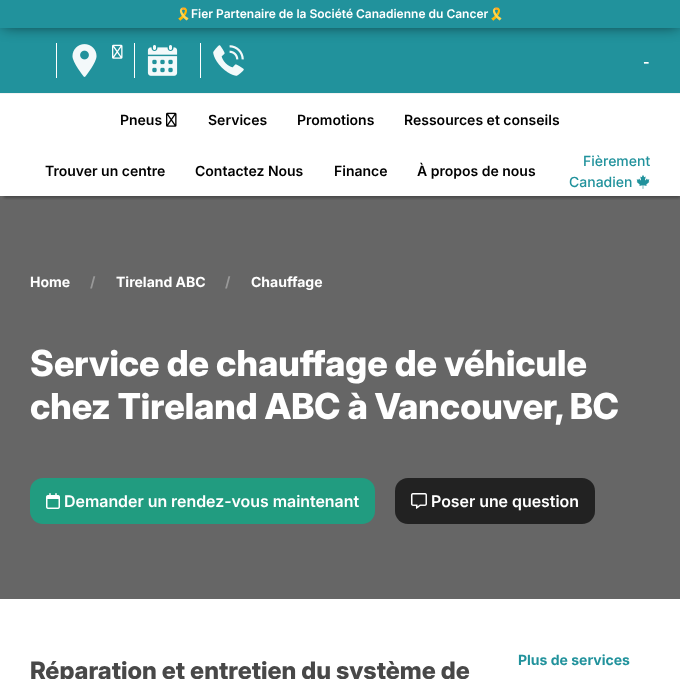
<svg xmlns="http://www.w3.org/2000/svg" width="680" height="679">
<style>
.a{font:bold 12px Noto Color Emoji;fill:#fff}
.b{font:600 12px Inter;fill:#fff}
.c{font:bold 14px Inter;fill:#fff}
.d{font:600 14px Inter;fill:#000}
.e{font:500 14px Inter;fill:#21929c}
.f{font:bold 14px Inter;fill:#999}
.g{font:800 35.75px 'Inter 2';fill:#fff}
.h{font:600 16px 'Inter 2';fill:#fff}
.i{font:800 24px Inter;fill:#484848}
.j{font:bold 14px Inter;fill:#21929c}
</style>
<defs>
<clipPath id="clip1"><path d="M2 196h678v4H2z"/></clipPath>
</defs>
<rect width="100%" height="100%" fill="#fff"/>
<path fill="#666" d="M0 196h680v403H0z"/>
<g clip-path="url(#clip1)">
<path fill="#0000004f" filter="blur(1.5px)" d="M4 6h676v192H4z"/>
</g>
<path fill="#21929c" d="M0 28h680v65H0z"/>
<path fill="#fff" d="M56 43h1v35H56z"/>
<image href="1.png" x="72" y="44" width="25" height="33"/>
<image href="2.png" x="112" y="44" width="11" height="15"/>
<path fill="#fff" d="M134 43h1v35H134z"/>
<image href="3.png" x="147" y="45" width="31" height="31"/>
<path fill="#fff" d="M200 43h1v35H200z"/>
<image href="4.png" x="213" y="45" width="31" height="31"/>
<path fill="#000000bd" filter="blur(7.5px)" d="M3 1h676v24H3z"/>
<path fill="#21929c" d="M0 0h680v28H0z"/>
<path fill="#f3f3f3" d="M0 93h680v1H0z"/>
<image href="5.png" x="166" y="112" width="11" height="15"/>
<image href="6.png" x="636" y="175" width="14" height="14"/>
<rect fill="#219c80" x="30" y="478" width="345" height="46" rx="13"/>
<image href="7.png" x="46" y="493" width="14" height="16"/>
<rect fill="#222" x="395" y="478" width="200" height="46" rx="13"/>
<image href="8.png" x="410" y="493" width="17" height="16"/>
<text class="a" x="176" y="18">🎗️</text>
<text class="b" x="191" y="18">Fier Partenaire de la Société Canadienne du Cancer</text>
<text class="a" x="489" y="18">🎗️</text>
<text class="c" x="643" y="67">-</text>
<text class="d" x="120" y="125">Pneus</text>
<text class="d" x="208" y="125">Services</text>
<text class="d" x="297" y="125">Promotions</text>
<text class="d" x="404" y="125">Ressources et conseils</text>
<text class="d" x="45" y="176">Trouver un centre</text>
<text class="d" x="195" y="176">Contactez Nous</text>
<text class="d" x="334" y="176">Finance</text>
<text class="d" x="417" y="176">À propos de nous</text>
<text class="e" x="583" y="166">Fièrement</text>
<text class="e" x="569" y="187">Canadien</text>
<text class="c" x="30" y="287">Home</text>
<text class="f" x="90" y="287">/</text>
<text class="c" x="116" y="287">Tireland ABC</text>
<text class="f" x="225" y="287">/</text>
<text class="c" x="251" y="287">Chauffage</text>
<text class="g" x="30" y="376">Service de chauffage de véhicule</text>
<text class="g" x="30" y="419">chez Tireland ABC à Vancouver, BC</text>
<text class="h" x="64" y="507">Demander un rendez-vous maintenant</text>
<text class="h" x="431" y="507">Poser une question</text>
<text class="i" x="30" y="679">Réparation et entretien du système de</text>
<text class="j" x="518" y="665">Plus de services</text>
</svg>
